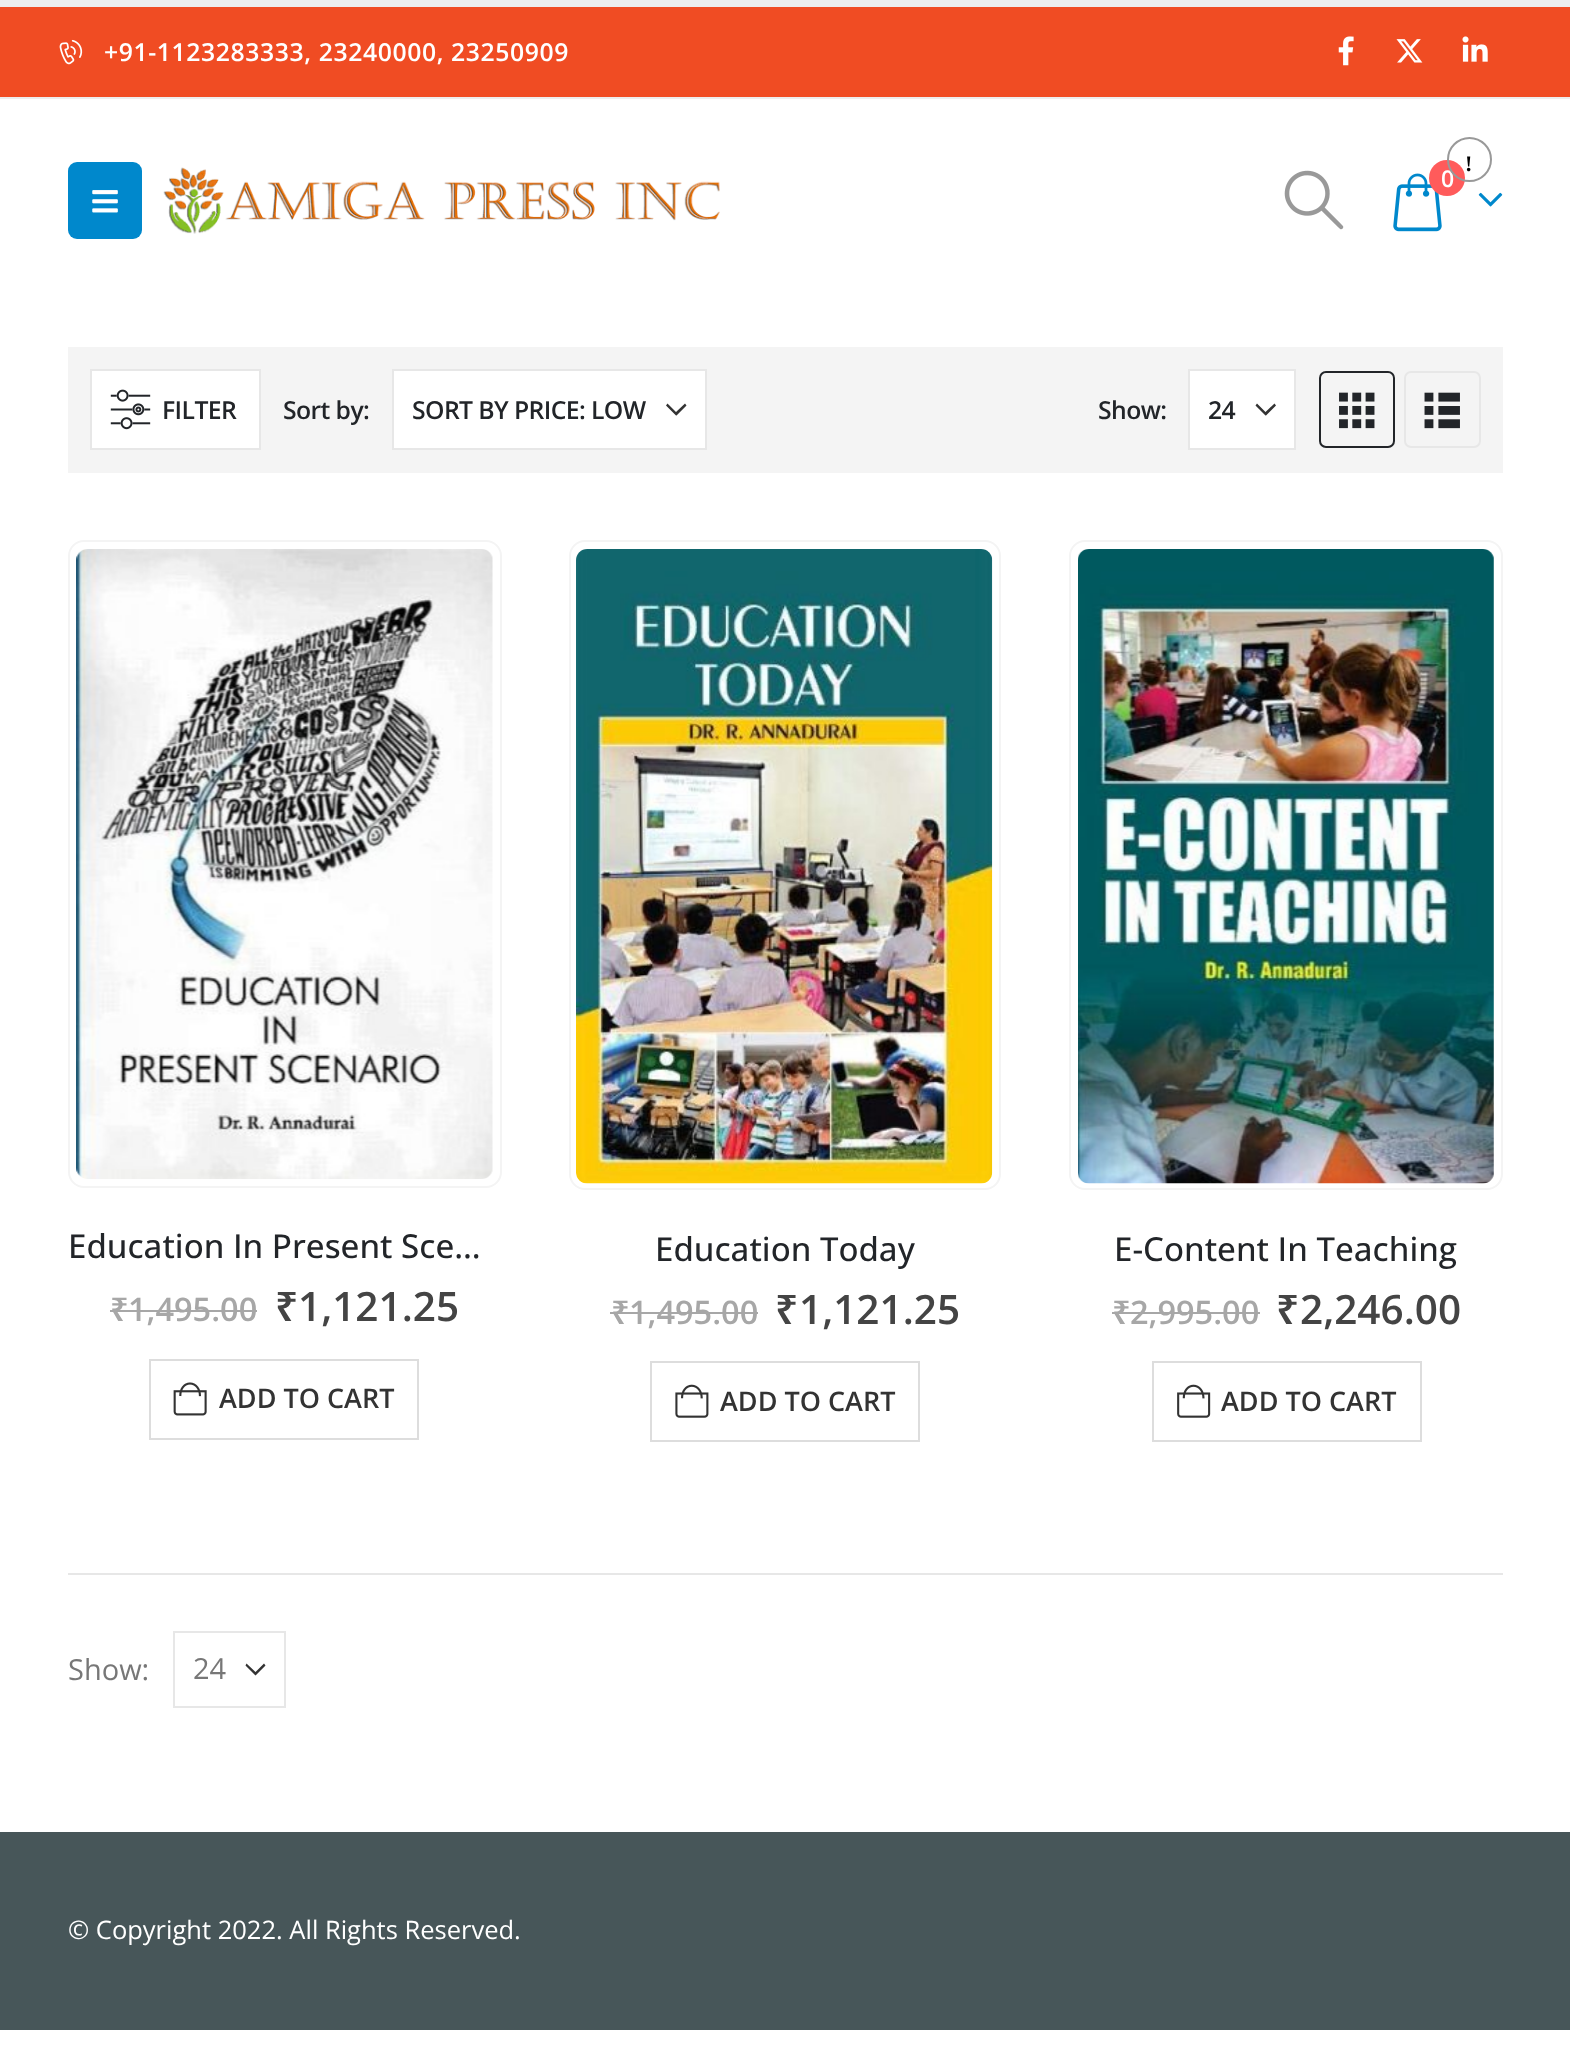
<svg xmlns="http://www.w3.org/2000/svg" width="1570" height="2050">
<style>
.a{font:600 24.75px Open Sans;letter-spacing:0.6px;fill:#fff}
.b{font:600 23px Open Sans;fill:#fff}
.c{font:bold 22px Liberation Serif;fill:#000}
.d{font:600 24.75px Open Sans;letter-spacing:-0.6px;fill:#222529}
.e{font:500 33.1px Open Sans;fill:#222529}
.f{font:600 32.5px Noto Sans;fill:#a7a7a7}
.g{font:600 32.5px Open Sans;fill:#a7a7a7}
.h{font:600 40.5px Noto Sans;fill:#444}
.i{font:600 40.5px Open Sans;fill:#444}
.j{font:600 27px Open Sans;fill:#333}
.k{font:29px Open Sans;fill:#777}
.l{font:25.5px Open Sans;fill:#fff}
</style>
<rect width="100%" height="100%" fill="#fff"/>
<path fill="#ededed" d="M0 0h1570v7H0z"/>
<path fill="#f04c23" d="M0 7h1570v90H0z"/>
<path fill="#ededed" d="M0 97h1570v2H0z"/>
<image href="1.png" x="59" y="39" width="24" height="26"/>
<image href="2.png" x="1338" y="36" width="16" height="30"/>
<image href="3.png" x="1396" y="39" width="27" height="24"/>
<image href="4.png" x="1462" y="36" width="26" height="26"/>
<rect fill="#08c" x="68" y="162" width="74" height="77" rx="9"/>
<image href="5.png" x="92" y="190" width="26" height="23"/>
<image href="6.png" x="163" y="167" width="557" height="67"/>
<image href="7.png" x="1284" y="170" width="60" height="60"/>
<image href="8.png" x="1393" y="173" width="49" height="59"/>
<circle fill="#ff5b5b" cx="1447" cy="178" r="18"/>
<image href="9.png" x="1478" y="192" width="25" height="15"/>
<path fill="#f4f4f4" d="M68 347h1435v126H68z"/>
<path fill="#fff" stroke="#e7e7e7" stroke-width="2" d="M91 370h169v79H91z"/>
<image href="10.png" x="110" y="389" width="41" height="41"/>
<path fill="#fff" d="M394 371h311v77H394z"/>
<path fill="#333" fill-rule="evenodd" d="M676.5 415.5l10-10l-1.5-2l-9 8.5l-8.5-8.5l-1.5 2l10 10z"/>
<path fill="none" stroke="#e7e7e7" stroke-width="2" d="M393 370h313v79H393z"/>
<path fill="#fff" d="M1190 371h104v77H1190z"/>
<path fill="#333" fill-rule="evenodd" d="M1266 415.5l10-10l-1.5-2l-9 8.5l-8.5-8.5l-1.5 2l10 10z"/>
<path fill="none" stroke="#e7e7e7" stroke-width="2" d="M1189 370h106v79H1189z"/>
<rect fill="none" stroke="#222529" stroke-width="2" x="1320" y="372" width="74" height="75" rx="6"/>
<image href="11.png" x="1339" y="392" width="36" height="37"/>
<rect fill="none" stroke="#e7e7e7" stroke-width="2" x="1405" y="372" width="75" height="75" rx="6"/>
<image href="12.png" x="1424" y="392" width="36" height="37"/>
<rect fill="none" stroke="#f4f4f4" stroke-width="2" x="69" y="541" width="432" height="646" rx="15"/>
<image href="13.png" x="76" y="549" width="417" height="630"/>
<path fill="#a7a7a7" d="M110 1310h18v2H110z"/>
<path fill="#a7a7a7" d="M128 1310h129v2H128z"/>
<path fill="none" stroke="#ddd" stroke-width="2" d="M150 1360h268v79H150z"/>
<image href="14.png" x="173" y="1382" width="34" height="34"/>
<rect fill="none" stroke="#f4f4f4" stroke-width="2" x="570" y="541" width="430" height="648" rx="15"/>
<image href="15.png" x="576" y="549" width="417" height="635"/>
<path fill="#a7a7a7" d="M610 1312h20v2H610z"/>
<path fill="#a7a7a7" d="M630 1312h128v2H630z"/>
<path fill="none" stroke="#ddd" stroke-width="2" d="M651 1362h268v79H651z"/>
<image href="16.png" x="675" y="1384" width="34" height="34"/>
<rect fill="none" stroke="#f4f4f4" stroke-width="2" x="1070" y="541" width="432" height="648" rx="15"/>
<image href="17.png" x="1078" y="549" width="416" height="635"/>
<path fill="#a7a7a7" d="M1112 1312h18v2H1112z"/>
<path fill="#a7a7a7" d="M1130 1312h130v2H1130z"/>
<path fill="none" stroke="#ddd" stroke-width="2" d="M1153 1362h268v79H1153z"/>
<image href="18.png" x="1177" y="1384" width="34" height="34"/>
<path fill="#e7e7e7" d="M68 1573h1435v2H68z"/>
<path fill="#333" fill-rule="evenodd" d="M255.5 1675.5l10-10l-1.5-2l-8.5 8.5l-9-8.5l-1 2z"/>
<path fill="none" stroke="#e7e7e7" stroke-width="2" d="M174 1632h111v75H174z"/>
<path fill="#475659" d="M0 1832h1570v198H0z"/>
<text class="a" x="104" y="61">+91-1123283333, 23240000, 23250909</text>
<text class="b" x="1441" y="187">0</text>
<circle fill="none" stroke="#999" stroke-width="2" cx="1469.5" cy="159.5" r="21.5"/>
<text class="c" x="1465" y="171">!</text>
<text class="d" x="162" y="419">FILTER</text>
<text class="d" x="283" y="419">Sort by:</text>
<text class="d" x="412" y="419">SORT BY PRICE: LOW</text>
<text class="d" x="1098" y="419">Show:</text>
<text class="d" x="1208" y="419">24</text>
<text class="e" x="68" y="1258">Education In Present Sce…</text>
<text class="f" x="110" y="1321">₹</text>
<text class="g" x="128" y="1321">1,495.00</text>
<text class="h" x="275" y="1321">₹</text>
<text class="i" x="298" y="1321">1,121.25</text>
<text class="j" x="219" y="1408">ADD TO CART</text>
<text class="e" x="655" y="1261">Education Today</text>
<text class="f" x="611" y="1324">₹</text>
<text class="g" x="629" y="1324">1,495.00</text>
<text class="h" x="775" y="1324">₹</text>
<text class="i" x="799" y="1324">1,121.25</text>
<text class="j" x="720" y="1411">ADD TO CART</text>
<text class="e" x="1114" y="1261">E-Content In Teaching</text>
<text class="f" x="1112" y="1324">₹</text>
<text class="g" x="1130" y="1324">2,995.00</text>
<text class="h" x="1276" y="1324">₹</text>
<text class="i" x="1300" y="1324">2,246.00</text>
<text class="j" x="1221" y="1411">ADD TO CART</text>
<text class="k" x="68" y="1680">Show:</text>
<text class="k" x="193" y="1679">24</text>
<text class="l" x="68" y="1939">© Copyright 2022. All Rights Reserved.</text>
</svg>
